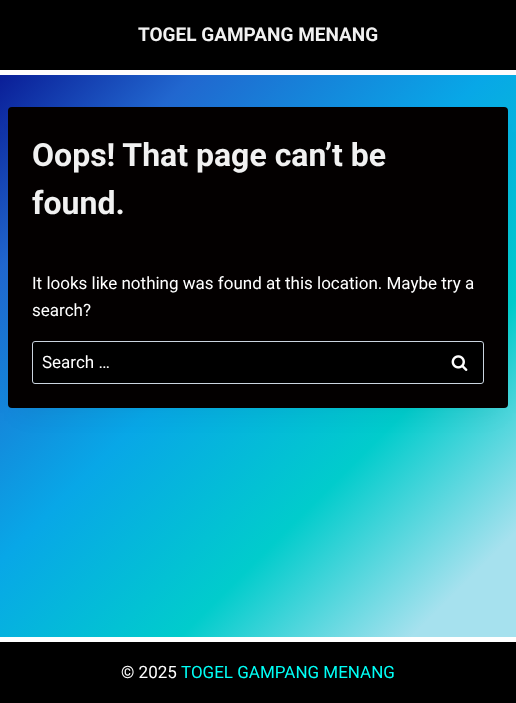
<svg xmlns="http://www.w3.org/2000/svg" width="516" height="703">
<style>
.a{font:bold 19px Roboto;fill:#f1f1f1}
.b{font:bold 32px Roboto;fill:#f1f1f1}
.c{font:17px Roboto;fill:#fff}
.d{font:17px Roboto;fill:#00fff6}
</style>
<defs>
<linearGradient id="g1" gradientUnits="userSpaceOnUse" x1="-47" y1="47" x2="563" y2="656"><stop offset="0" stop-color="#010181"/><stop offset="0.22" stop-color="#2167cf"/><stop offset="0.46" stop-color="#08a7e7"/><stop offset="0.67" stop-color="#01cccc"/><stop offset="0.86" stop-color="#a6e1ee"/></linearGradient>
</defs>
<rect width="100%" height="100%" fill="#fff"/>
<path fill="url(#g1)" d="M0 75h516v562H0z"/>
<path fill="#000" d="M0 0h516v70H0z"/>
<path fill="#fffcfc" d="M0 70h516v5H0z"/>
<path fill="#0000000d" filter="blur(12.5px)" d="M18 132h480v281H18z"/>
<rect fill="#030000" x="8" y="107" width="500" height="301" rx="4"/>
<rect fill="#000" stroke="#cbd5e0" x="32.5" y="341.5" width="451" height="42" rx="2.5"/>
<image href="1.png" x="451" y="355" width="17" height="16"/>
<path fill="#000" d="M0 642h516v61H0z"/>
<text class="a" x="138" y="41">TOGEL GAMPANG MENANG</text>
<text class="b" x="32" y="166">Oops! That page can’t be</text>
<text class="b" x="32" y="214">found.</text>
<text class="c" x="32" y="289">It looks like nothing was found at this location. Maybe try a</text>
<text class="c" x="32" y="316">search?</text>
<text class="c" x="42" y="368">Search …</text>
<text class="c" x="121" y="678">© 2025</text>
<text class="d" x="181" y="678">TOGEL GAMPANG MENANG</text>
</svg>
